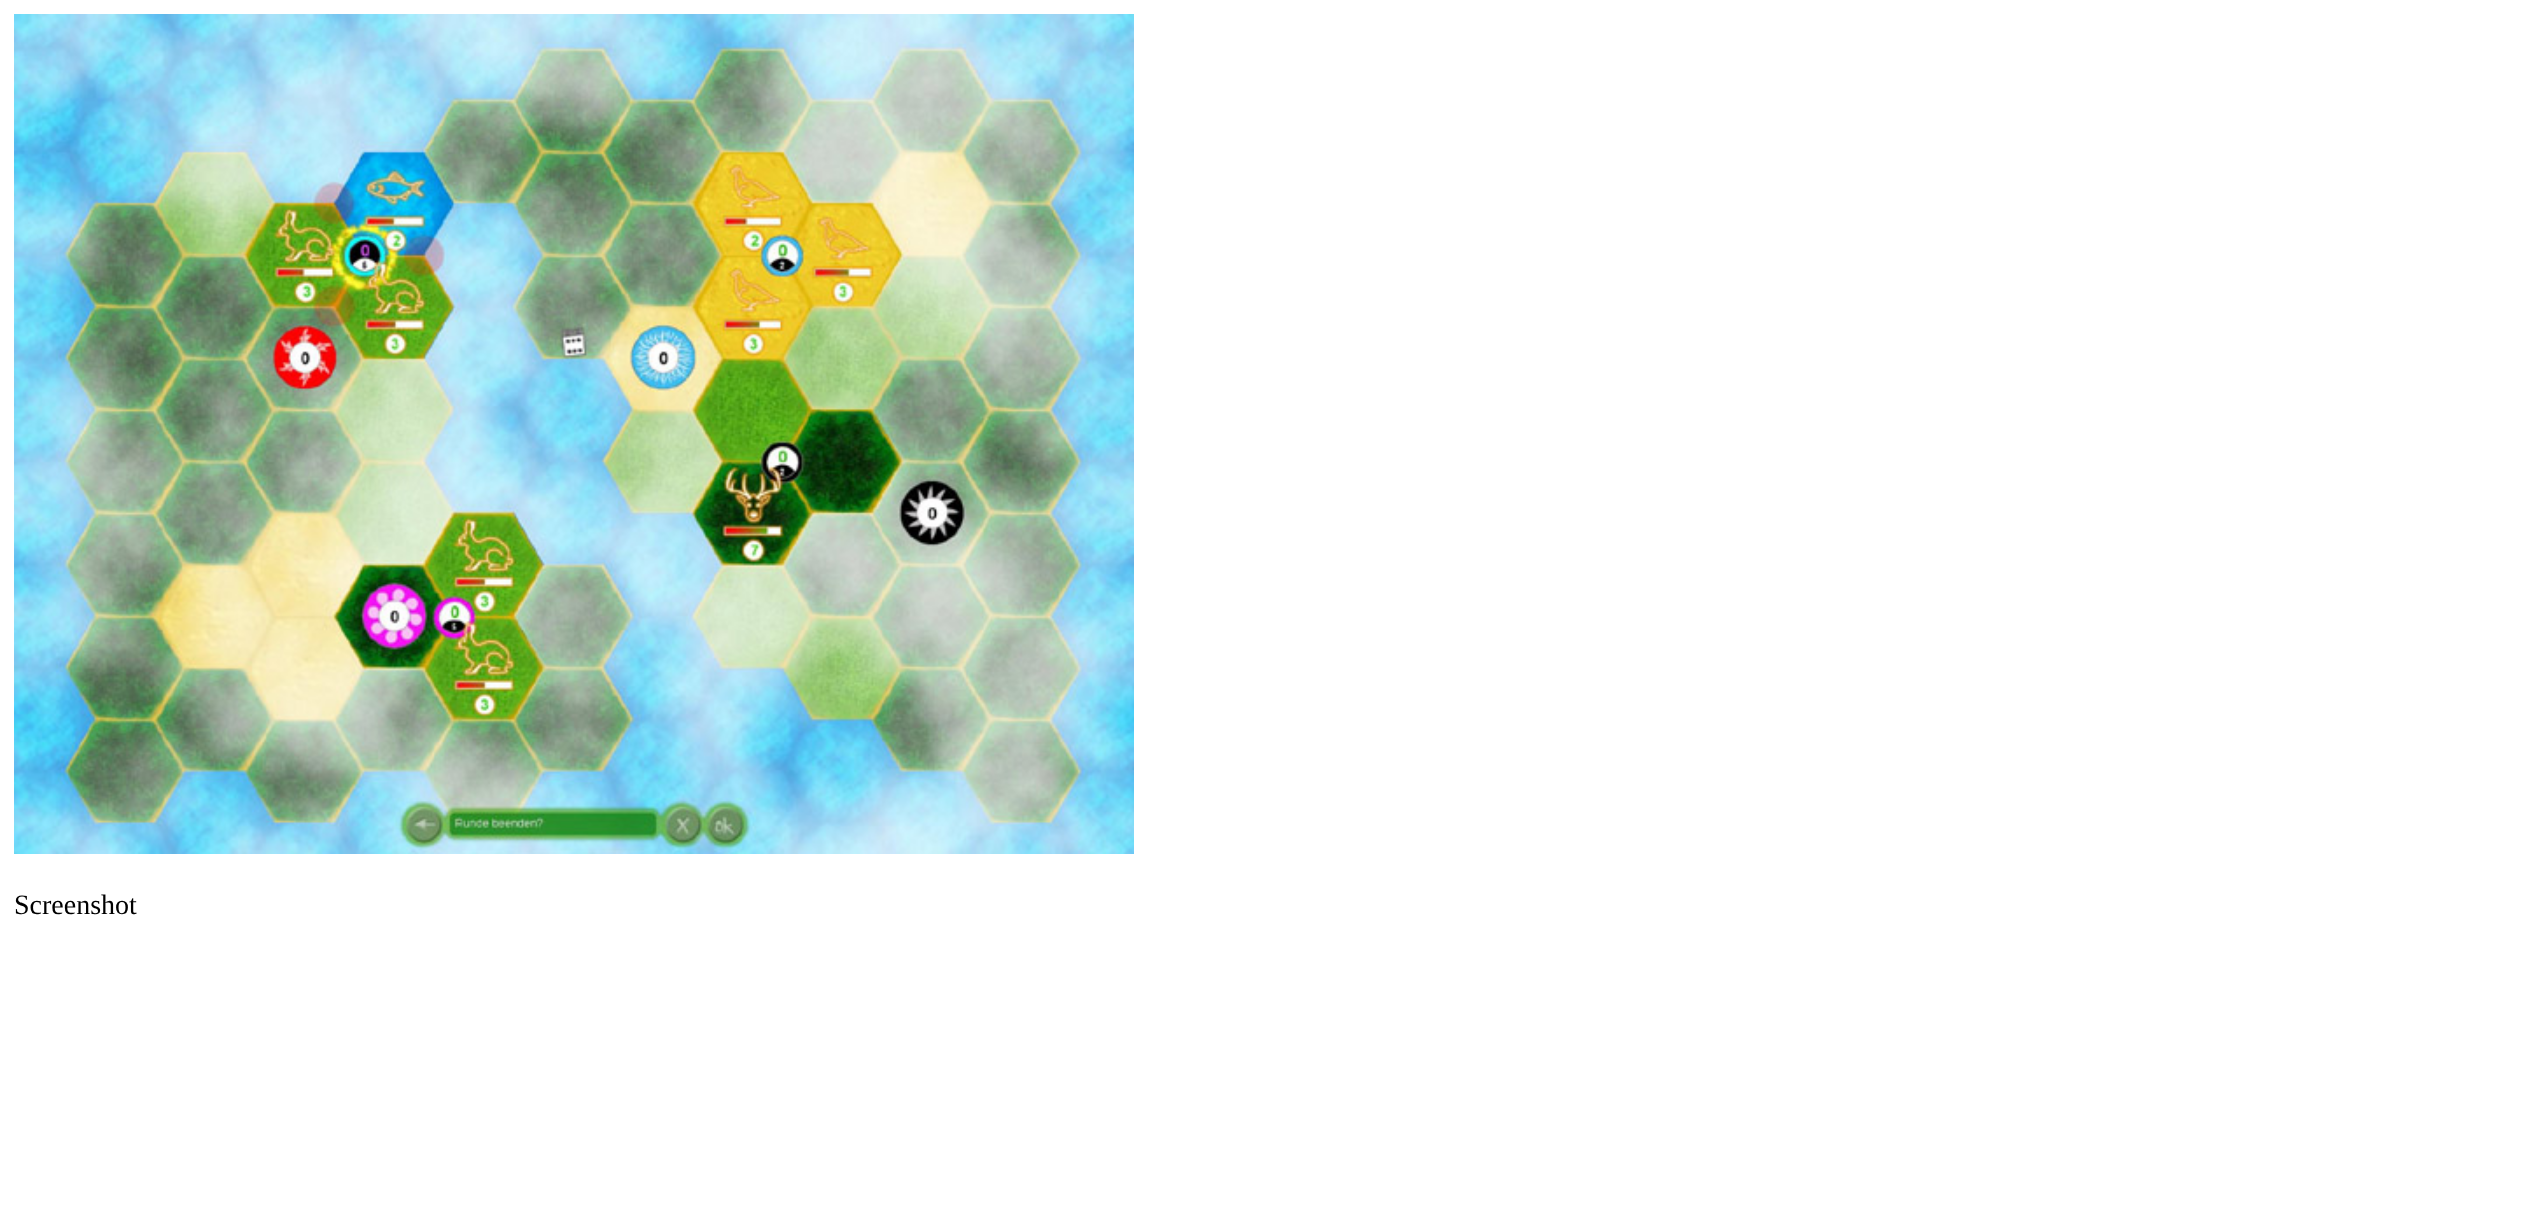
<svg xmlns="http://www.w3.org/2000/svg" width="2522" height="1230">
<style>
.a{font:28px Liberation Serif;fill:#000}
</style>
<rect width="100%" height="100%" fill="#fff"/>
<image href="1.png" x="14" y="14" width="1120" height="840"/>
<text class="a" x="14" y="914">Screenshot</text>
</svg>
